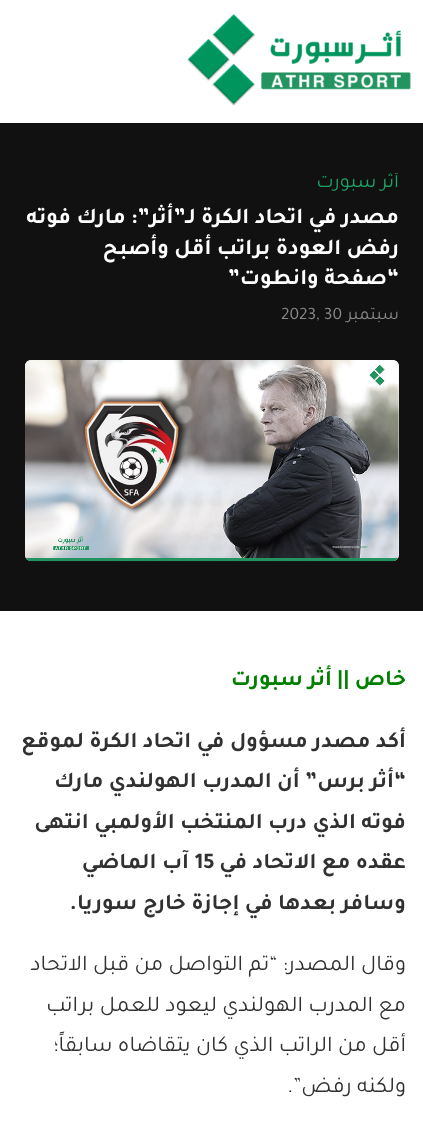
<svg xmlns="http://www.w3.org/2000/svg" width="423" height="1123">
<style>
.a{font:20px Tajawal;direction:rtl;fill:#1fa065}
.b{font:bold 22.5px Tajawal;direction:rtl;fill:#fff}
.c{font:17.5px Tajawal;direction:rtl;fill:#888}
.d{font:17.5px Tajawal;fill:#888}
.e{font:bold 22.5px Tajawal;direction:rtl;fill:#008000}
.f{font:bold 22.5px Tajawal;direction:rtl;fill:#313131}
.g{font:bold 22.5px Tajawal;fill:#313131}
.h{font:22.5px Tajawal;direction:rtl;fill:#313131}
</style>
<defs>
<clipPath id="clip1"><path d="M25 173h374v25H25z"/></clipPath>
</defs>
<rect width="100%" height="100%" fill="#fff"/>
<image href="1.png" x="187" y="14" width="224" height="92"/>
<path fill="#111" d="M0 123h423v488H0z"/>
<rect fill="#f5f5f5" x="25" y="360" width="374" height="201" rx="6"/>
<image href="2.png" x="25" y="360" width="374" height="202"/>
<g clip-path="url(#clip1)">
<text class="a" x="399" y="187">أثر سبورت</text>
</g>
<text class="b" x="399" y="223">مصدر في اتحاد الكرة لـ”أثر”: مارك فوته</text>
<text class="b" x="399" y="254">رفض العودة براتب أقل وأصبح</text>
<text class="b" x="399" y="284">“صفحة وانطوت”</text>
<text class="c" x="399" y="319">سبتمبر</text>
<text class="d" x="281" y="319">2023, 30</text>
<text class="e" x="406" y="685">خاص ||</text>
<text class="e" x="332" y="685">أثر سبورت</text>
<text class="f" x="406" y="747">أكد مصدر مسؤول في اتحاد الكرة لموقع</text>
<text class="f" x="406" y="787">“أثر برس” أن المدرب الهولندي مارك</text>
<text class="f" x="406" y="828">فوته الذي درب المنتخب الأولمبي انتهى</text>
<text class="f" x="406" y="868">عقده مع الاتحاد في</text>
<text class="g" x="195" y="868">15</text>
<text class="f" x="189" y="868">آب الماضي</text>
<text class="f" x="406" y="909">وسافر بعدها في إجازة خارج سوريا.</text>
<text class="h" x="406" y="970">وقال المصدر: “تم التواصل من قبل الاتحاد</text>
<text class="h" x="406" y="1011">مع المدرب الهولندي ليعود للعمل براتب</text>
<text class="h" x="406" y="1051">أقل من الراتب الذي كان يتقاضاه سابقاً؛</text>
<text class="h" x="406" y="1092">ولكنه رفض”.</text>
</svg>
